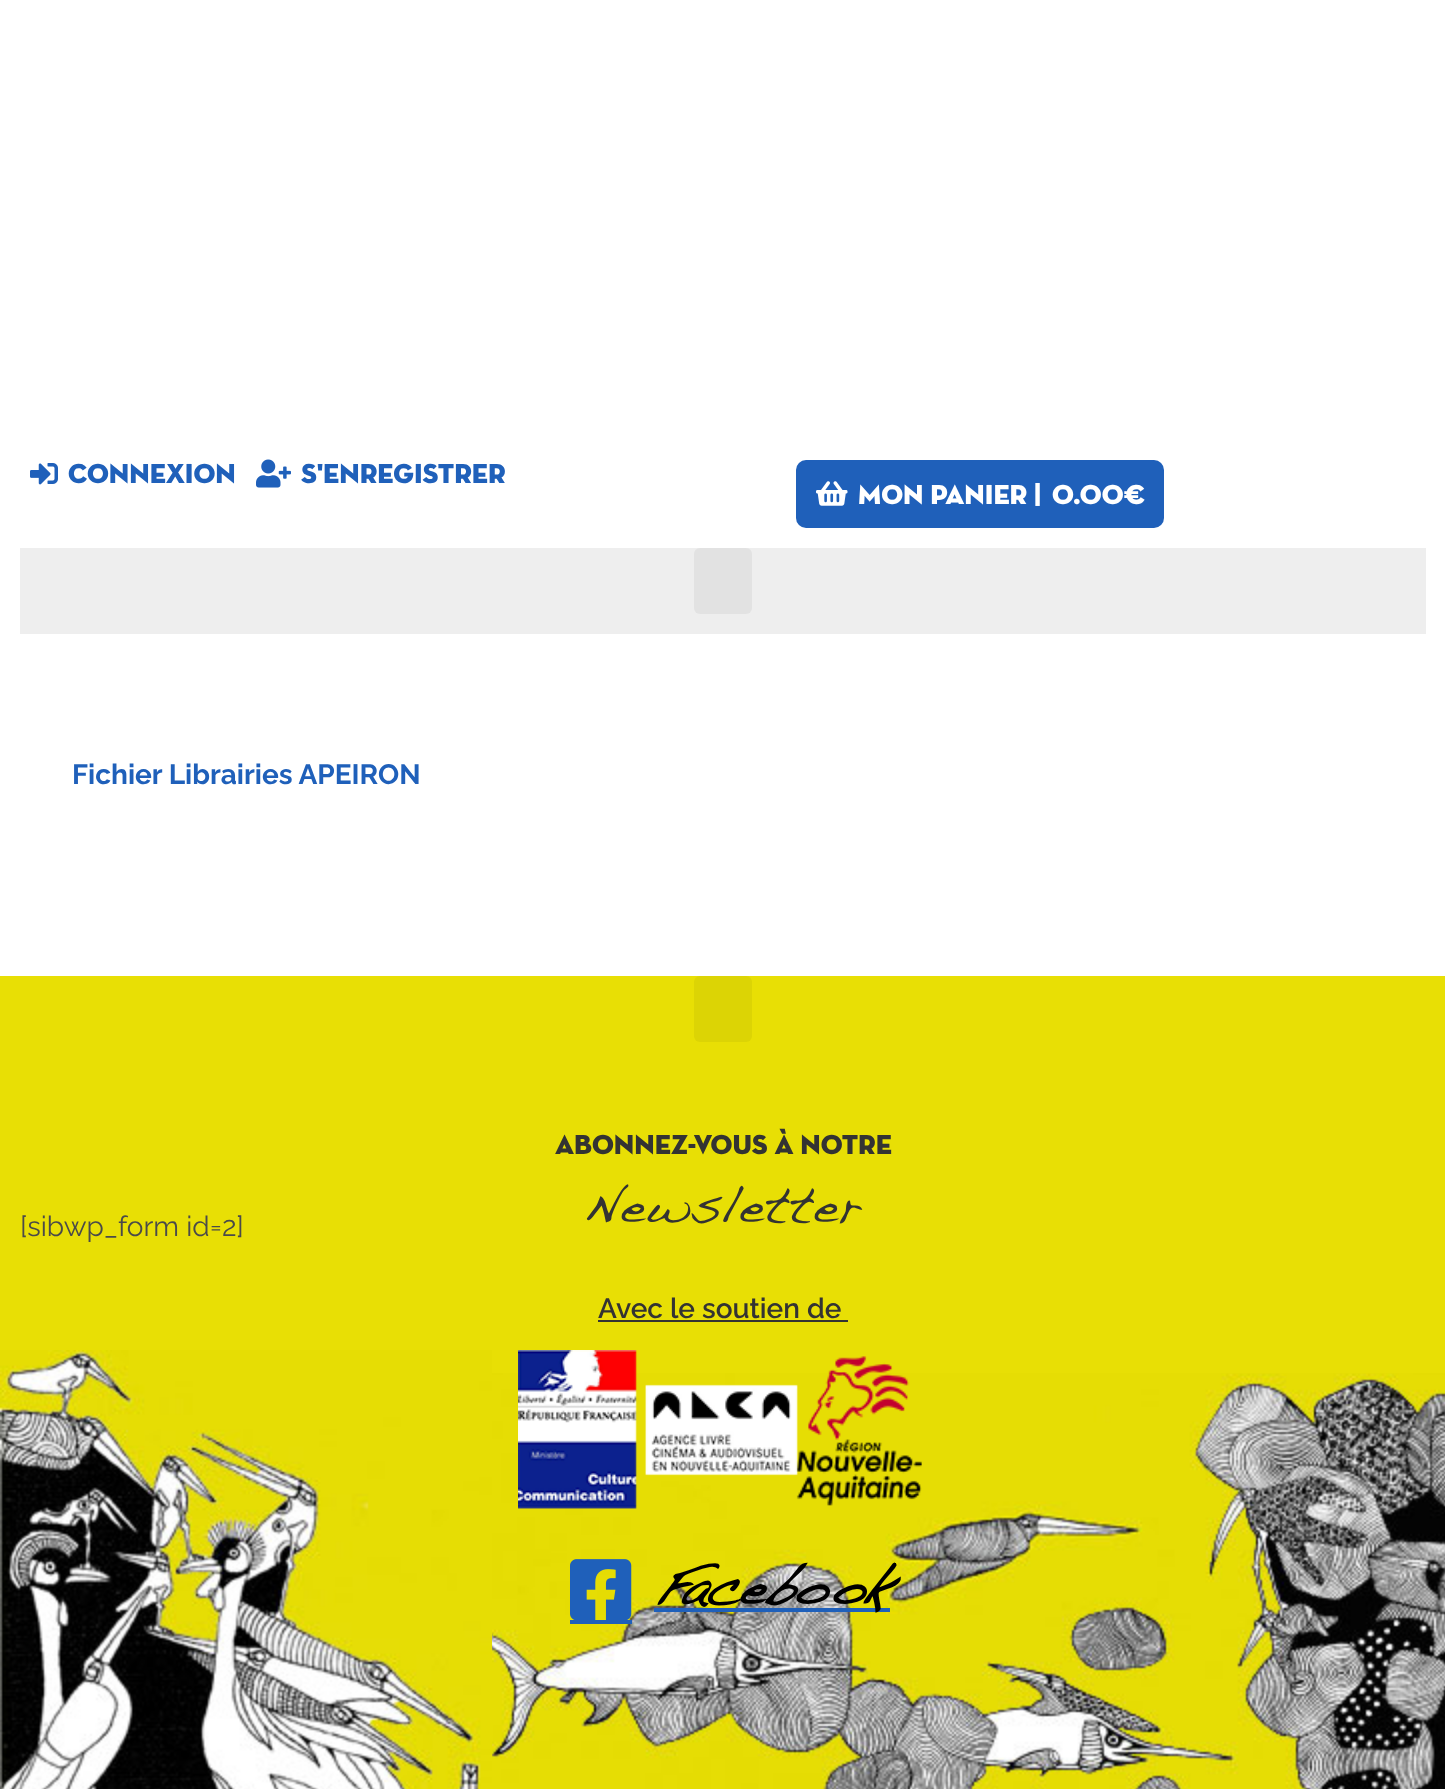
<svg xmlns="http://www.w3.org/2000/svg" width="1445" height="1789">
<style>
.a{font:28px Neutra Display;fill:#1f60ba}
.b{font:28px Neutra Display;fill:#fff}
.c{font:bold 28px Raleway;fill:#1f60ba}
.d{font:28px Neutra Display;fill:#333}
.e{font:100 52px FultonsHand;fill:#333}
.f{font:28px Raleway;fill:#4a4a4a}
.g{font:600 28px Raleway;fill:#333}
.h{font:italic bold 52px FultonsHand;fill:#000}
</style>
<rect width="100%" height="100%" fill="#fff"/>
<image href="1.png" x="30" y="463" width="28" height="22"/>
<image href="2.png" x="256" y="459" width="35" height="29"/>
<rect fill="#1f60ba" x="796" y="460" width="368" height="68" rx="10"/>
<image href="3.png" x="816" y="481" width="32" height="25"/>
<path fill="#eee" d="M20 548h1406v86H20z"/>
<rect fill="#e2e2e2" x="694" y="548" width="58" height="66" rx="6"/>
<path fill="#e8df05" d="M0 976h1445v397H0z"/>
<rect fill="#dcd405" x="694" y="976" width="58" height="66" rx="6"/>
<path fill="#333" d="M598 1320h250v2H598z"/>
<image href="7.png" x="492" y="1373" width="953" height="416"/>
<image href="4.png" x="518" y="1350" width="404" height="159"/>
<image href="5.png" x="570" y="1559" width="62" height="61"/>
<path fill="#1f60ba" d="M570 1620h62v4H570z"/>
<path fill="#1f60ba" d="M654 1608h236v4H654z"/>
<image href="6.png" x="0" y="1350" width="492" height="439"/>
<text class="a" x="68" y="483">Connexion</text>
<text class="a" x="301" y="483">S'enregistrer</text>
<text class="b" x="858" y="504">MON PANIER |</text>
<text class="b" x="1052" y="504">0.00€</text>
<text class="c" x="72" y="784">Fichier Librairies APEIRON</text>
<text class="d" x="555" y="1154">Abonnez-vous à notre</text>
<text class="e" x="583" y="1222">Newsletter</text>
<text class="f" x="20" y="1236">[sibwp_form id=2]</text>
<text class="g" x="598" y="1318">Avec le soutien de</text>
<text class="h" x="654" y="1604">Facebook</text>
</svg>
